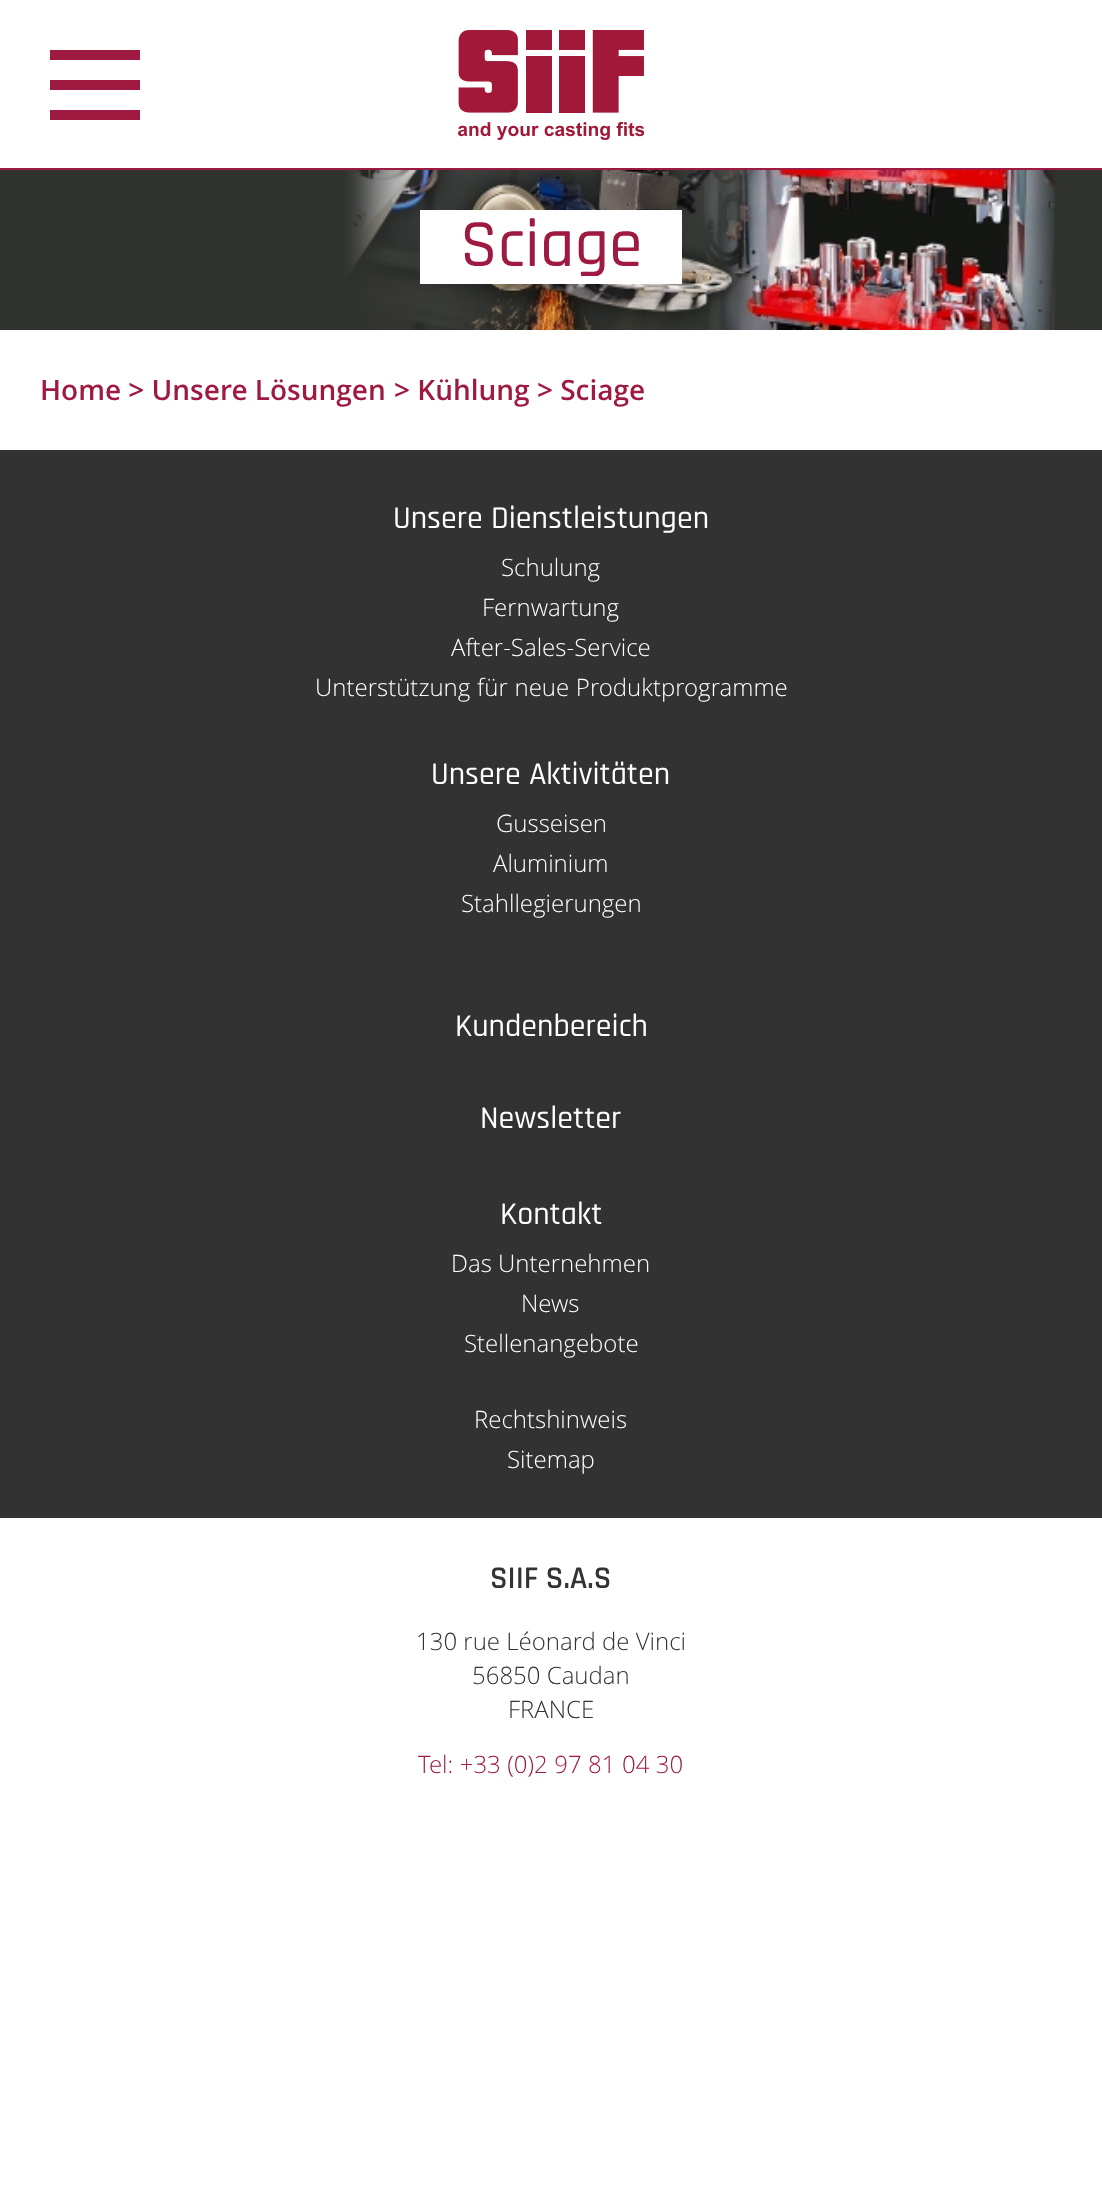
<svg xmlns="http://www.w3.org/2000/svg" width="1102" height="2200">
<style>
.a{font:500 68px Rajdhani;fill:#9e1a40}
.b{font:600 28px Open Sans;fill:#9e1a40}
.c{font:500 32px Rajdhani;fill:#fff}
.d{font:300 24px Open Sans;fill:#fff}
.e{font:600 32px Rajdhani;fill:#333}
.f{font:300 24px Open Sans;fill:#333}
.g{font:300 24px Open Sans;fill:#9e1a40}
</style>
<rect width="100%" height="100%" fill="#fff"/>
<path fill="#9e1a40" d="M0 168h1102v2H0z"/>
<path fill="#9e1a40" d="M50 50h90v10H50z"/>
<path fill="#9e1a40" d="M50 80h90v10H50z"/>
<path fill="#9e1a40" d="M50 110h90v10H50z"/>
<image href="1.png" x="458" y="30" width="186" height="110"/>
<image href="2.png" x="0" y="170" width="1102" height="160"/>
<path fill="#fff" d="M420 210h262v74H420z"/>
<path fill="#323232" d="M0 450h1102v1068H0z"/>
<text class="a" x="460" y="266">Sciage</text>
<text class="b" x="40" y="400">Home &gt; Unsere Lösungen</text>
<text class="b" x="394" y="400">&gt; Kühlung &gt; Sciage</text>
<text class="c" x="393" y="528">Unsere Dienstleistungen</text>
<text class="d" x="501" y="576">Schulung</text>
<text class="d" x="482" y="616">Fernwartung</text>
<text class="d" x="451" y="656">After-Sales-Service</text>
<text class="d" x="315" y="696" word-spacing="0.5">Unterstützung für neue Produktprogramme</text>
<text class="c" x="431" y="784">Unsere Aktivitäten</text>
<text class="d" x="496" y="832">Gusseisen</text>
<text class="d" x="493" y="872">Aluminium</text>
<text class="d" x="461" y="912">Stahllegierungen</text>
<text class="c" x="455" y="1036">Kundenbereich</text>
<text class="c" x="480" y="1128">Newsletter</text>
<text class="c" x="500" y="1224">Kontakt</text>
<text class="d" x="451" y="1272">Das Unternehmen</text>
<text class="d" x="521" y="1312">News</text>
<text class="d" x="464" y="1352">Stellenangebote</text>
<text class="d" x="474" y="1428">Rechtshinweis</text>
<text class="d" x="507" y="1468">Sitemap</text>
<text class="e" x="490" y="1588">SIIF S.A.S</text>
<text class="f" x="416" y="1650">130 rue Léonard de Vinci</text>
<text class="f" x="472" y="1684">56850 Caudan</text>
<text class="f" x="508" y="1718">FRANCE</text>
<text class="g" x="418" y="1773" word-spacing="0.25">Tel: +33 (0)2 97 81 04 30</text>
</svg>
